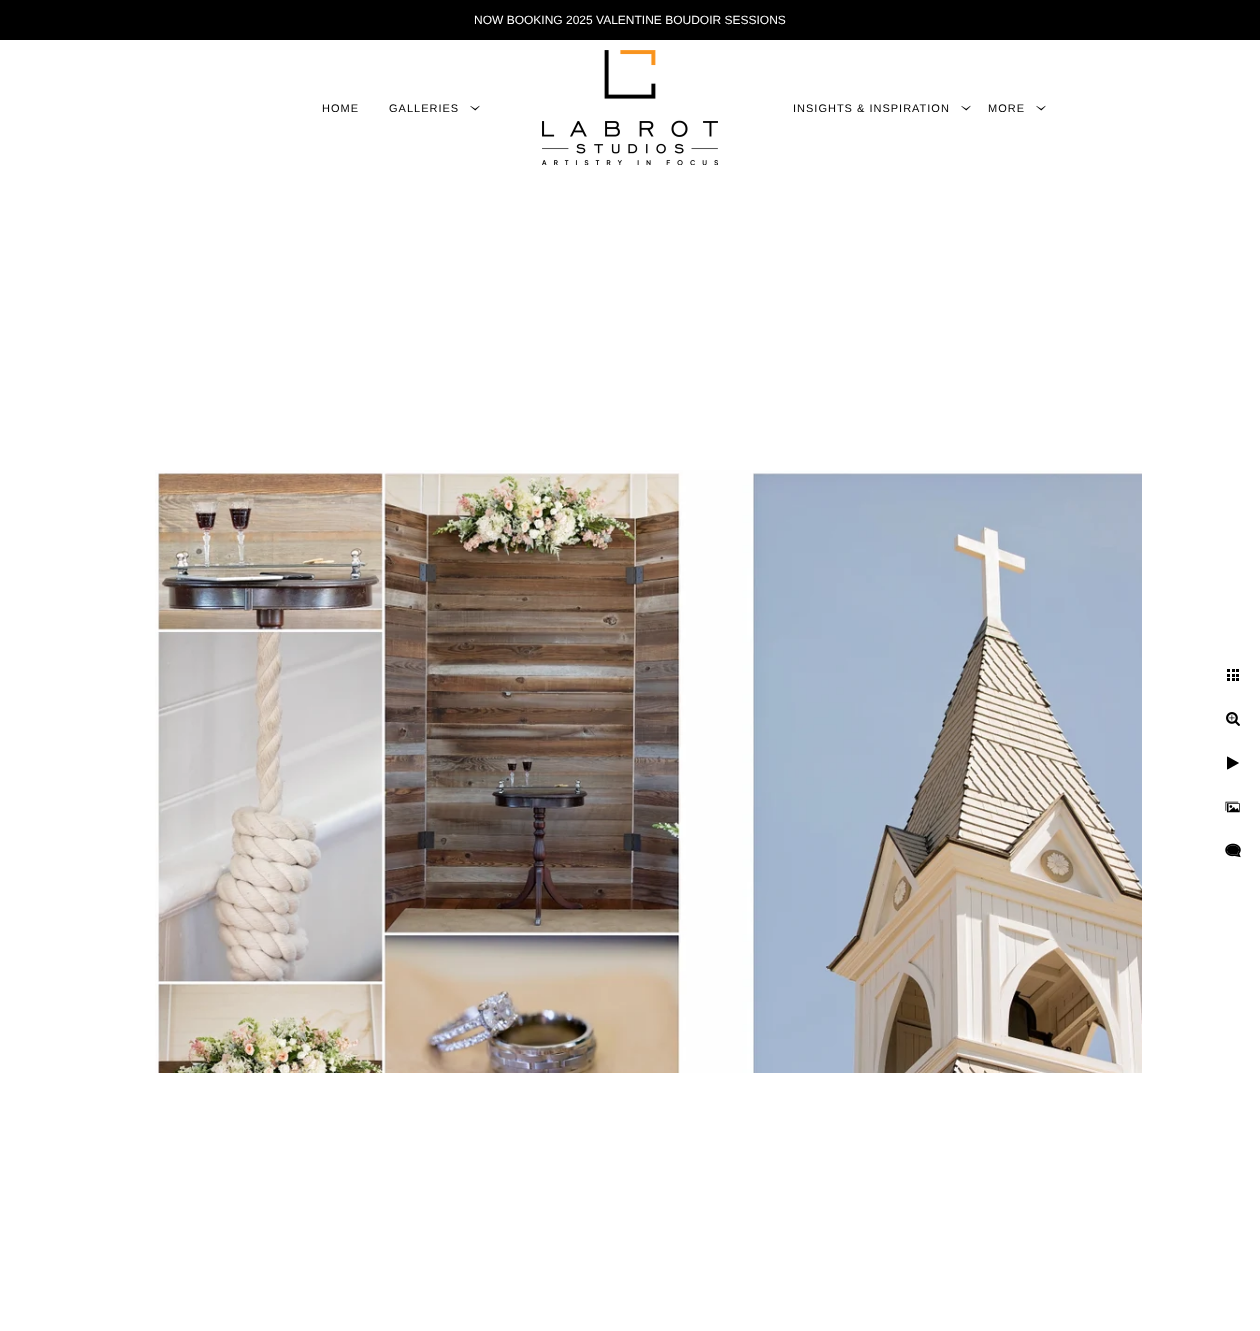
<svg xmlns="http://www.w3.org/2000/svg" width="1260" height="1331">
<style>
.a{font:12px Liberation Sans;fill:#fff}
.b{font:11px Liberation Sans;letter-spacing:1px;fill:#000}
</style>
<rect width="100%" height="100%" fill="#fff"/>
<path fill="#000" d="M0 0h1260v40H0z"/>
<image href="1.png" x="470" y="105" width="10" height="6"/>
<image href="2.png" x="542" y="50" width="176" height="115"/>
<image href="1.png" x="961" y="105" width="10" height="6"/>
<image href="1.png" x="1036" y="105" width="10" height="6"/>
<image href="3.png" x="155" y="470" width="987" height="603"/>
<image href="4.png" x="1227" y="669" width="12" height="12"/>
<image href="5.png" x="1226" y="712" width="14" height="14"/>
<image href="6.png" x="1227" y="756" width="12" height="14"/>
<image href="7.png" x="1225" y="801" width="15" height="12"/>
<image href="8.png" x="1225" y="843" width="16" height="15"/>
<text class="a" x="474" y="24">NOW BOOKING 2025 VALENTINE BOUDOIR SESSIONS</text>
<text class="b" x="322" y="112">HOME</text>
<text class="b" x="389" y="112">GALLERIES</text>
<text class="b" x="793" y="112">INSIGHTS &amp; INSPIRATION</text>
<text class="b" x="988" y="112">MORE</text>
</svg>
